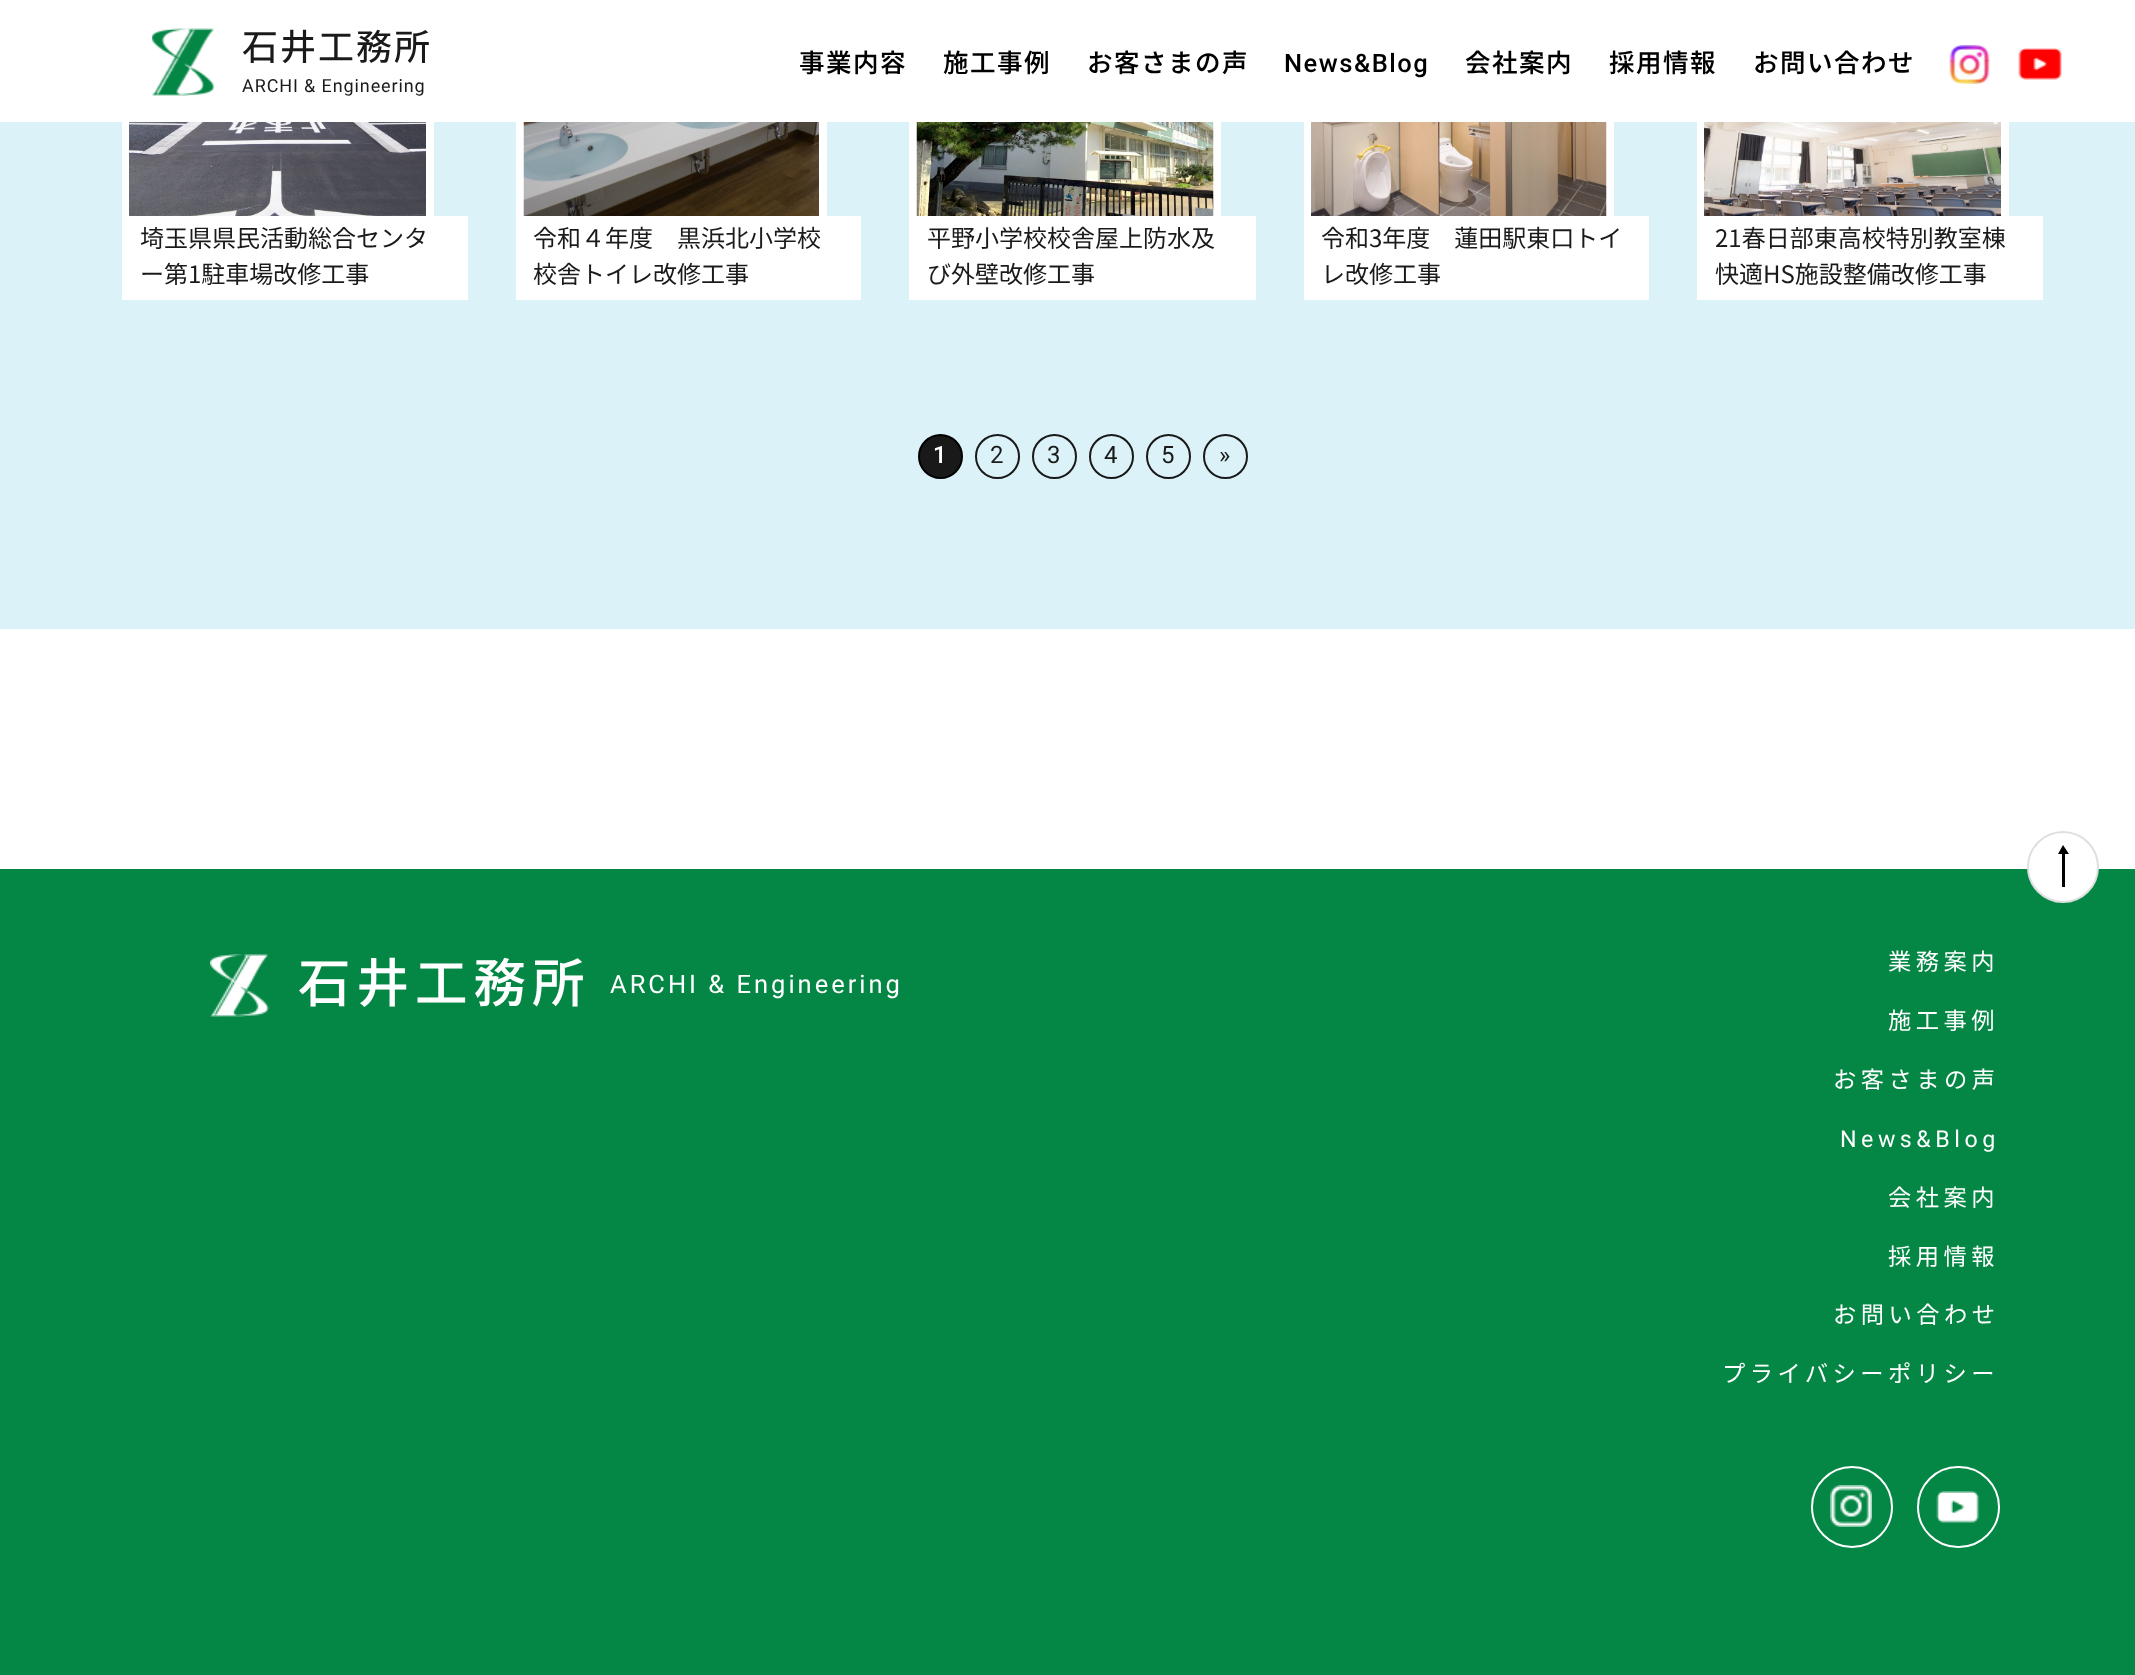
<svg xmlns="http://www.w3.org/2000/svg" width="2135" height="1675">
<style>
.a{font:36px 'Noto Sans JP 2';letter-spacing:2px;fill:#1a1a1a}
.b{font:18px Roboto;letter-spacing:0.9px;fill:#1a1a1a}
.c{font:500 25.5px 'Noto Sans JP 2';letter-spacing:1.5px;fill:#000}
.d{font:500 25.5px Roboto;letter-spacing:1.5px;fill:#000}
.e{font:24px Noto Sans JP;fill:#1a1a1a}
.f{font:500 24px Roboto;fill:#fff}
.g{font:24px Roboto;fill:#1a1a1a}
.h{font:500 52.5px Noto Sans JP;letter-spacing:6px;fill:#fff}
.i{font:25.5px Roboto;letter-spacing:3px;fill:#fff}
.j{font:23.25px Noto Sans JP;letter-spacing:4.5px;fill:#fff}
.k{font:23.25px Roboto;letter-spacing:4.5px;fill:#fff}
</style>
<rect width="100%" height="100%" fill="#fff"/>
<path fill="#daf2f8" d="M0 122h2135v507H0z"/>
<path fill="none" stroke="#fff" stroke-width="8" d="M126 -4h304v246H126z"/>
<image href="1.png" x="152" y="28" width="63" height="68"/>
<path fill="none" stroke="#fff" stroke-width="8" d="M1701 -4h304v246H1701z"/>
<image href="2.png" x="1949" y="45" width="41" height="39"/>
<image href="3.png" x="2018" y="48" width="44" height="32"/>
<image href="4.png" x="129" y="122" width="297" height="94"/>
<path fill="#fff" d="M122 216h346v84H122z"/>
<path fill="none" stroke="#fff" stroke-width="8" d="M520 -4h303v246H520z"/>
<image href="5.png" x="523" y="122" width="296" height="94"/>
<path fill="#fff" d="M516 216h345v84H516z"/>
<path fill="none" stroke="#fff" stroke-width="8" d="M913 -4h304v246H913z"/>
<image href="6.png" x="916" y="122" width="298" height="94"/>
<path fill="#fff" d="M909 216h347v84H909z"/>
<path fill="none" stroke="#fff" stroke-width="8" d="M1308 -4h302v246H1308z"/>
<image href="7.png" x="1311" y="122" width="296" height="94"/>
<path fill="#fff" d="M1304 216h345v84H1304z"/>
<image href="8.png" x="1704" y="122" width="297" height="94"/>
<path fill="#fff" d="M1697 216h346v84H1697z"/>
<circle fill="#191919" stroke="#000" stroke-width="2" cx="940.5" cy="456.5" r="21.5"/>
<circle fill="none" stroke="#191919" stroke-width="2" cx="997.5" cy="456.5" r="21.5"/>
<circle fill="none" stroke="#191919" stroke-width="2" cx="1054.5" cy="456.5" r="21.5"/>
<circle fill="none" stroke="#191919" stroke-width="2" cx="1111.5" cy="456.5" r="21.5"/>
<circle fill="none" stroke="#191919" stroke-width="2" cx="1168.5" cy="456.5" r="21.5"/>
<circle fill="none" stroke="#191919" stroke-width="2" cx="1225.5" cy="456.5" r="21.5"/>
<path fill="#048745" d="M0 869h2135v806H0z"/>
<circle fill="#fff" stroke="#dfdfdf" stroke-width="2" cx="2063" cy="867" r="35"/>
<path fill="#000" d="M2065 854v33h-3v-33h-4l5-9l6 9z"/>
<image href="9.png" x="210" y="954" width="59" height="63"/>
<circle fill="none" stroke="#fff" stroke-width="2" cx="1852" cy="1507" r="40"/>
<image href="10.png" x="1830" y="1485" width="42" height="42"/>
<rect fill="none" stroke="#fff" stroke-width="2" x="1918" y="1467" width="81" height="80" rx="40"/>
<image href="11.png" x="1936" y="1491" width="43" height="32"/>
<text class="a" x="242" y="60">石井工務所</text>
<text class="b" x="242" y="92">ARCHI &amp; Engineering</text>
<text class="c" x="799" y="72">事業内容</text>
<text class="c" x="943" y="72">施工事例</text>
<text class="c" x="1087" y="72">お客さまの声</text>
<text class="d" x="1284" y="72">News&amp;Blog</text>
<text class="c" x="1465" y="72">会社案内</text>
<text class="c" x="1609" y="72">採用情報</text>
<text class="c" x="1753" y="72">お問い合わせ</text>
<text class="e" x="140" y="247">埼玉県県民活動総合センタ</text>
<text class="e" x="140" y="283">ー第1駐車場改修工事</text>
<text class="e" x="533" y="247">令和４年度　黒浜北小学校</text>
<text class="e" x="533" y="283">校舎トイレ改修工事</text>
<text class="e" x="927" y="247">平野小学校校舎屋上防水及</text>
<text class="e" x="927" y="283">び外壁改修工事</text>
<text class="e" x="1321" y="247">令和3年度　蓮田駅東口トイ</text>
<text class="e" x="1321" y="283">レ改修工事</text>
<text class="e" x="1715" y="247">21春日部東高校特別教室棟</text>
<text class="e" x="1715" y="283">快適HS施設整備改修工事</text>
<text class="f" x="933" y="463">1</text>
<text class="g" x="990" y="463">2</text>
<text class="g" x="1047" y="463">3</text>
<text class="g" x="1104" y="463">4</text>
<text class="g" x="1161" y="463">5</text>
<text class="g" x="1219" y="463">»</text>
<text class="h" x="298" y="1002">石井工務所</text>
<text class="i" x="610" y="993">ARCHI &amp; Engineering</text>
<text class="j" x="1888" y="970">業務案内</text>
<text class="j" x="1888" y="1029">施工事例</text>
<text class="j" x="1833" y="1088">お客さまの声</text>
<text class="k" x="1840" y="1147">News&amp;Blog</text>
<text class="j" x="1888" y="1206">会社案内</text>
<text class="j" x="1888" y="1265">採用情報</text>
<text class="j" x="1833" y="1323">お問い合わせ</text>
<text class="j" x="1722" y="1382">プライバシーポリシー</text>
</svg>
